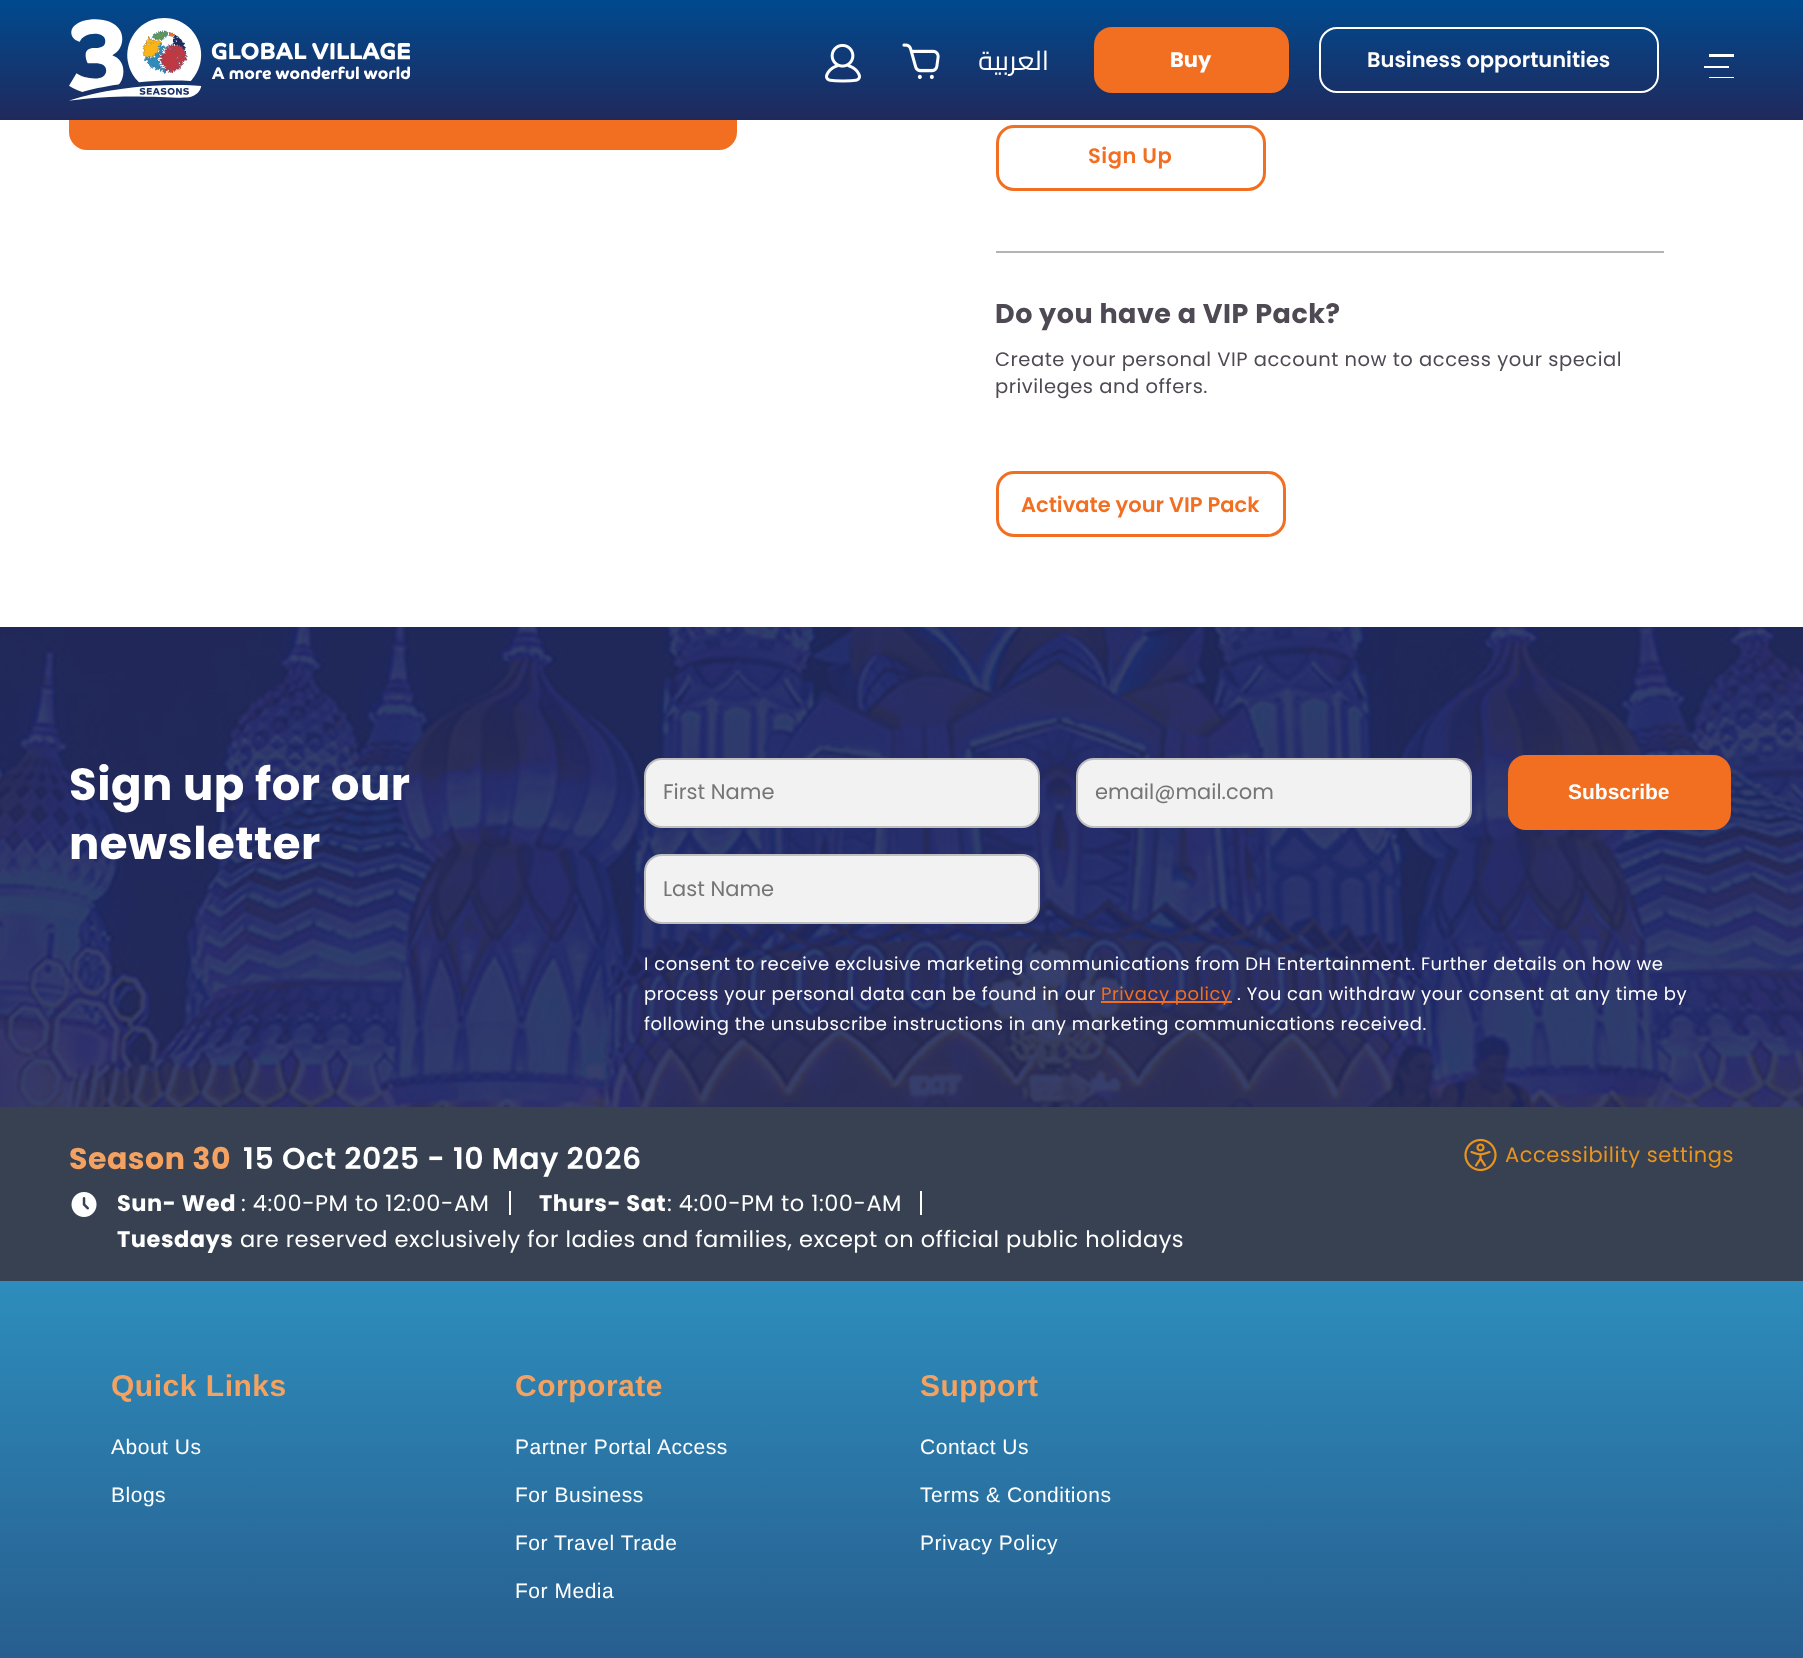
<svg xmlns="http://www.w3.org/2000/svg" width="1803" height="1658">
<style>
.a{font:27px Cairo;letter-spacing:0.52px;direction:rtl;fill:#fff}
.b{font:bold 21px Poppins;fill:#fff}
.c{font:600 21px Poppins;fill:#fff}
.d{font:600 21px Poppins;letter-spacing:0.52px;fill:#f26f22}
.e{font:bold 27px Poppins;letter-spacing:0.52px;fill:#4e4953}
.f{font:19.5px Poppins;letter-spacing:0.52px;fill:#4e4953}
.g{font:600 21px Poppins;fill:#f26f22}
.h{font:bold 45px Poppins;letter-spacing:0.52px;fill:#fff}
.i{font:21px Poppins;fill:#757575}
.j{font:bold 21px Liberation Sans;fill:#fff}
.k{font:18px Poppins;letter-spacing:0.52px;fill:#fff}
.l{font:18px Poppins;letter-spacing:0.52px;fill:#f26f22}
.m{font:bold 30px Poppins;letter-spacing:0.52px;fill:#f4a261}
.n{font:600 30px Poppins;letter-spacing:0.52px;fill:#fff}
.o{font:21px Poppins;letter-spacing:0.52px;fill:#e8941f}
.p{font:bold 22.5px Poppins;letter-spacing:0.52px;fill:#fff}
.q{font:22.5px Poppins;letter-spacing:0.52px;fill:#fff}
.r{font:bold 30px Liberation Sans;letter-spacing:0.52px;fill:#f4a261}
.s{font:21px Liberation Sans;letter-spacing:0.52px;fill:#fff}
</style>
<defs>
<linearGradient id="g1" gradientUnits="userSpaceOnUse" x1="902" y1="0" x2="902" y2="120"><stop offset="0" stop-color="#004a8f"/><stop offset="1" stop-color="#20295c"/></linearGradient>
<linearGradient id="g2" gradientUnits="userSpaceOnUse" x1="902" y1="1281" x2="902" y2="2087"><stop offset="0" stop-color="#2d8dbc"/><stop offset="1" stop-color="#20295c"/></linearGradient>
</defs>
<rect width="100%" height="100%" fill="#fff"/>
<rect fill="#f26f22" stroke="#f26f22" stroke-width="3" x="70.5" y="85.5" width="665" height="63" rx="16.5"/>
<path fill="url(#g1)" d="M0 0h1803v120H0z"/>
<image href="1.png" x="69" y="18" width="341" height="83"/>
<image href="2.png" x="825" y="43" width="36" height="40"/>
<image href="3.png" x="902" y="43" width="38" height="36"/>
<rect fill="#f26f22" x="1094" y="27" width="195" height="66" rx="18"/>
<rect fill="none" stroke="#fff" stroke-width="2" x="1320" y="28" width="338" height="64" rx="17"/>
<path fill="#fff" d="M1709 54h25v3H1709z"/>
<path fill="#fff" d="M1704 66h25v2H1704z"/>
<path fill="#fff" d="M1709 77h25v1H1709z"/>
<rect fill="none" stroke="#f26f22" stroke-width="3" x="997.5" y="126.5" width="267" height="63" rx="16.5"/>
<path fill="#b3b3b3" d="M996 251h668v2H996z"/>
<rect fill="none" stroke="#f26f22" stroke-width="3" x="997.5" y="472.5" width="287" height="63" rx="16.5"/>
<image href="4.png" x="0" y="627" width="1803" height="480"/>
<rect fill="#f2f2f2" stroke="#bfbfbf" stroke-width="2" x="645" y="759" width="394" height="68" rx="17"/>
<rect fill="#f2f2f2" stroke="#bfbfbf" stroke-width="2" x="1077" y="759" width="394" height="68" rx="17"/>
<rect fill="#f26f22" x="1508" y="755" width="223" height="75" rx="18"/>
<rect fill="#f2f2f2" stroke="#bfbfbf" stroke-width="2" x="645" y="855" width="394" height="68" rx="17"/>
<path fill="#f26f22" d="M1101 1001h131v2H1101z"/>
<path fill="#374151" d="M0 1107h1803v174H0z"/>
<image href="5.png" x="1464" y="1138" width="33" height="34"/>
<image href="6.png" x="71" y="1192" width="26" height="25"/>
<path fill="#fff" d="M509 1191h2v24H509z"/>
<path fill="#fff" d="M920 1191h2v24H920z"/>
<path fill="url(#g2)" d="M0 1281h1803v377H0z"/>
<text class="a" x="1049" y="70">العربية</text>
<text class="b" x="1170" y="67">Buy</text>
<text class="c" x="1367" y="67">Business opportunities</text>
<text class="d" x="1088" y="163">Sign Up</text>
<text class="e" x="995" y="323">Do you have a VIP Pack?</text>
<text class="f" x="995" y="366">Create your personal VIP account now to access your special</text>
<text class="f" x="995" y="393">privileges and offers.</text>
<text class="g" x="1021" y="512">Activate your VIP Pack</text>
<text class="h" x="69" y="800">Sign up for our</text>
<text class="h" x="69" y="859">newsletter</text>
<text class="i" x="663" y="799">First Name</text>
<text class="i" x="1095" y="799">email@mail.com</text>
<text class="j" x="1568" y="799">Subscribe</text>
<text class="i" x="663" y="896">Last Name</text>
<text class="k" x="644" y="970">I consent to receive exclusive marketing communications from DH Entertainment. Further details on how we</text>
<text class="k" x="644" y="1000">process your personal data can be found in our</text>
<text class="l" x="1101" y="1000">Privacy policy</text>
<text class="k" x="1237" y="1000">. You can withdraw your consent at any time by</text>
<text class="k" x="644" y="1030">following the unsubscribe instructions in any marketing communications received.</text>
<text class="m" x="69" y="1169">Season 30</text>
<text class="n" x="243" y="1169">15 Oct 2025 - 10 May 2026</text>
<text class="o" x="1505" y="1162">Accessibility settings</text>
<text class="p" x="117" y="1211">Sun- Wed</text>
<text class="q" x="241" y="1211">: 4:00-PM to 12:00-AM</text>
<text class="p" x="539" y="1211">Thurs- Sat</text>
<text class="q" x="667" y="1211">: 4:00-PM to 1:00-AM</text>
<text class="p" x="117" y="1247">Tuesdays</text>
<text class="q" x="240" y="1247">are reserved exclusively for ladies and families, except on official public holidays</text>
<text class="r" x="111" y="1396">Quick Links</text>
<text class="s" x="111" y="1454">About Us</text>
<text class="s" x="111" y="1502">Blogs</text>
<text class="r" x="515" y="1396">Corporate</text>
<text class="s" x="515" y="1454">Partner Portal Access</text>
<text class="s" x="515" y="1502">For Business</text>
<text class="s" x="515" y="1550">For Travel Trade</text>
<text class="s" x="515" y="1598">For Media</text>
<text class="r" x="920" y="1396">Support</text>
<text class="s" x="920" y="1454">Contact Us</text>
<text class="s" x="920" y="1502">Terms &amp; Conditions</text>
<text class="s" x="920" y="1550">Privacy Policy</text>
</svg>
